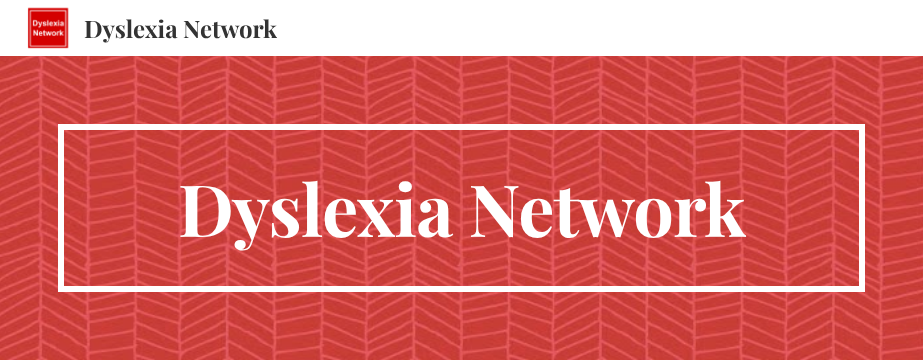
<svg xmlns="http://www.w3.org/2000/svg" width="923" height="362">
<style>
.a{font:bold 24px Playfair Display;fill:#333}
.b{font:bold 72px Playfair Display;letter-spacing:-0.75px;fill:#fff}
</style>
<rect width="100%" height="100%" fill="#fff"/>
<image href="1.png" x="27" y="7" width="42" height="42"/>
<image href="2.png" x="0" y="56" width="923" height="304"/>
<path fill="none" stroke="#fff" stroke-width="6" d="M61 127h801v162H61z"/>
<text class="a" x="84" y="38">Dyslexia Network</text>
<text class="b" x="178" y="237">Dyslexia Network</text>
</svg>
